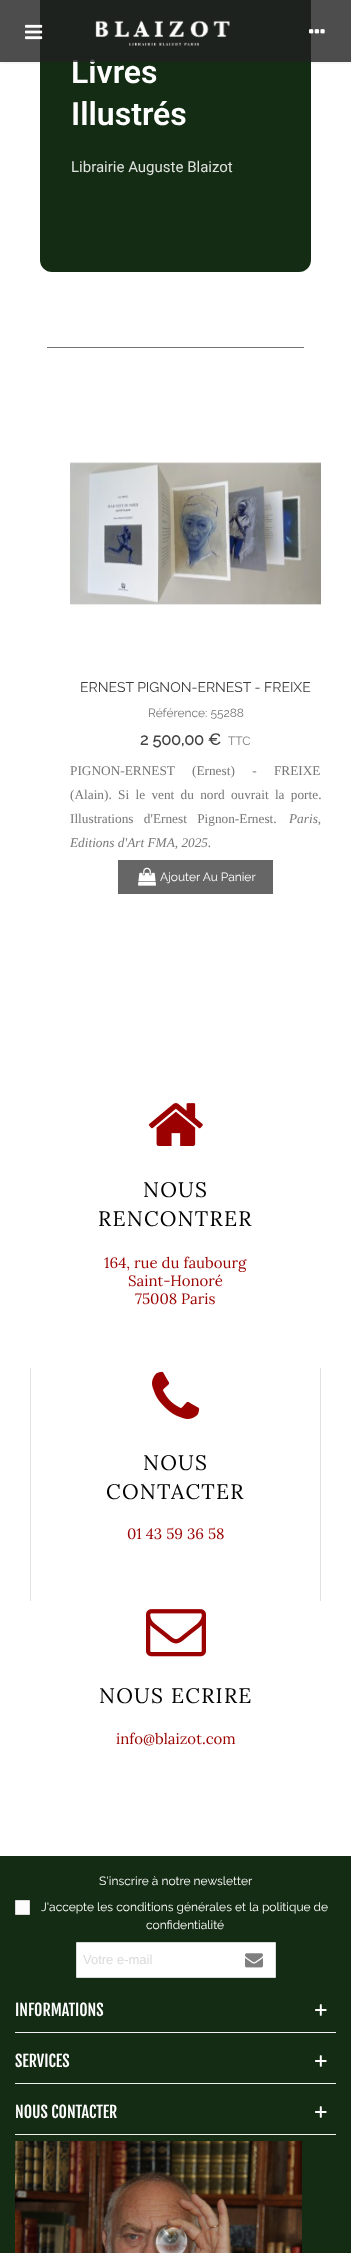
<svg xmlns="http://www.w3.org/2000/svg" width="351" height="2253">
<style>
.a{font:600 32px Roboto;fill:#fff}
.b{font:15px Roboto;fill:#dee1de}
.c{font:100 14px Raleway;fill:#3b3b3b}
.d{font:100 12px Raleway;fill:#777}
.e{font:bold 16px Raleway;fill:#444}
.f{font:13.3px Liberation Serif;fill:#777}
.g{font:italic 13.3px Liberation Serif;fill:#777}
.h{font:100 12px Raleway;fill:#fff}
.i{font:21px Lora;letter-spacing:1.25px;fill:#000}
.j{font:15px Lora;fill:#9b0101}
.k{font:13px Liberation Sans;fill:#dadada}
.l{font:16px Fjalla One;fill:#fff}
</style>
<defs>
<clipPath id="clip1"><path d="M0 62h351v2H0z"/></clipPath>
</defs>
<rect width="100%" height="100%" fill="#fff"/>
<rect fill="#142c14" x="40" y="-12" width="271" height="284" rx="12"/>
<g clip-path="url(#clip1)">
<path fill="#0000001a" filter="blur(2px)" d="M0 0h351v62H0z"/>
</g>
<path fill="#707070" d="M47 347h257v1H47z"/>
<image href="4.png" x="70" y="461" width="251" height="144"/>
<path fill="#666" d="M118 860h155v34H118z"/>
<image href="5.png" x="138" y="867" width="18" height="19"/>
<image href="6.png" x="148" y="1103" width="55" height="43"/>
<path fill="#e2e2e2" d="M320 1368h1v233H320z"/>
<path fill="#e2e2e2" d="M30 1368h1v233H30z"/>
<image href="7.png" x="152" y="1371" width="48" height="48"/>
<image href="8.png" x="146" y="1609" width="60" height="48"/>
<path fill="#142c14" d="M0 1856h351v397H0z"/>
<path fill="#fcfcfc" stroke="#d9d9d9" d="M15.5 1900.5h14v14H15.5z"/>
<path fill="#fff" stroke="#d9d9d9" d="M76.5 1942.5h199v35H76.5z"/>
<image href="9.png" x="245" y="1953" width="18" height="15"/>
<path fill="#f2f2f2" d="M15 2032h321v1H15z"/>
<image href="10.png" x="315" y="2004" width="12" height="12"/>
<path fill="#f2f2f2" d="M15 2083h321v1H15z"/>
<image href="10.png" x="315" y="2055" width="12" height="12"/>
<path fill="#f2f2f2" d="M15 2134h321v1H15z"/>
<image href="10.png" x="315" y="2106" width="12" height="12"/>
<image href="11.png" x="15" y="2141" width="287" height="112"/>
<text class="a" x="71" y="83">Livres</text>
<path fill="#202020cc" d="M0 0h351v62H0z"/>
<image href="3.png" x="309" y="29" width="16" height="5"/>
<image href="2.png" x="95" y="20" width="135" height="26"/>
<image href="1.png" x="25" y="24" width="18" height="16"/>
<text class="a" x="71" y="125">Illustrés</text>
<text class="b" x="71" y="172">Librairie Auguste Blaizot</text>
<text class="c" x="80" y="692">ERNEST PIGNON-ERNEST - FREIXE</text>
<text class="d" x="148" y="717">Référence: 55288</text>
<text class="e" x="140" y="745">2 500,00 €</text>
<text class="d" x="228" y="745">TTC</text>
<text class="f" x="70" y="775" word-spacing="14">PIGNON-ERNEST (Ernest) - FREIXE</text>
<text class="f" x="70" y="799" word-spacing="3">(Alain). Si le vent du nord ouvrait la porte.</text>
<text class="f" x="70" y="823" word-spacing="7">Illustrations d'Ernest Pignon-Ernest.</text>
<text class="g" x="289" y="823">Paris,</text>
<text class="g" x="70" y="847">Editions d'Art FMA, 2025.</text>
<text class="h" x="160" y="881">Ajouter Au Panier</text>
<text class="i" x="143" y="1197">NOUS</text>
<text class="i" x="98" y="1226">RENCONTRER</text>
<text class="j" x="104" y="1268">164, rue du faubourg</text>
<text class="j" x="128" y="1286">Saint-Honoré</text>
<text class="j" x="135" y="1304">75008 Paris</text>
<text class="i" x="143" y="1470">NOUS</text>
<text class="i" x="106" y="1499">CONTACTER</text>
<text class="j" x="127" y="1539">01 43 59 36 58</text>
<text class="i" x="99" y="1703">NOUS ECRIRE</text>
<text class="j" x="116" y="1744">info@blaizot.com</text>
<text class="h" x="99" y="1885">S'inscrire à notre newsletter</text>
<text class="h" x="41" y="1911">J'accepte les conditions générales et la politique de</text>
<text class="h" x="146" y="1929">confidentialité</text>
<text class="k" x="83" y="1964">Votre e-mail</text>
<text class="l" x="15" y="2016">INFORMATIONS</text>
<text class="l" x="15" y="2067">SERVICES</text>
<text class="l" x="15" y="2118">NOUS CONTACTER</text>
</svg>
